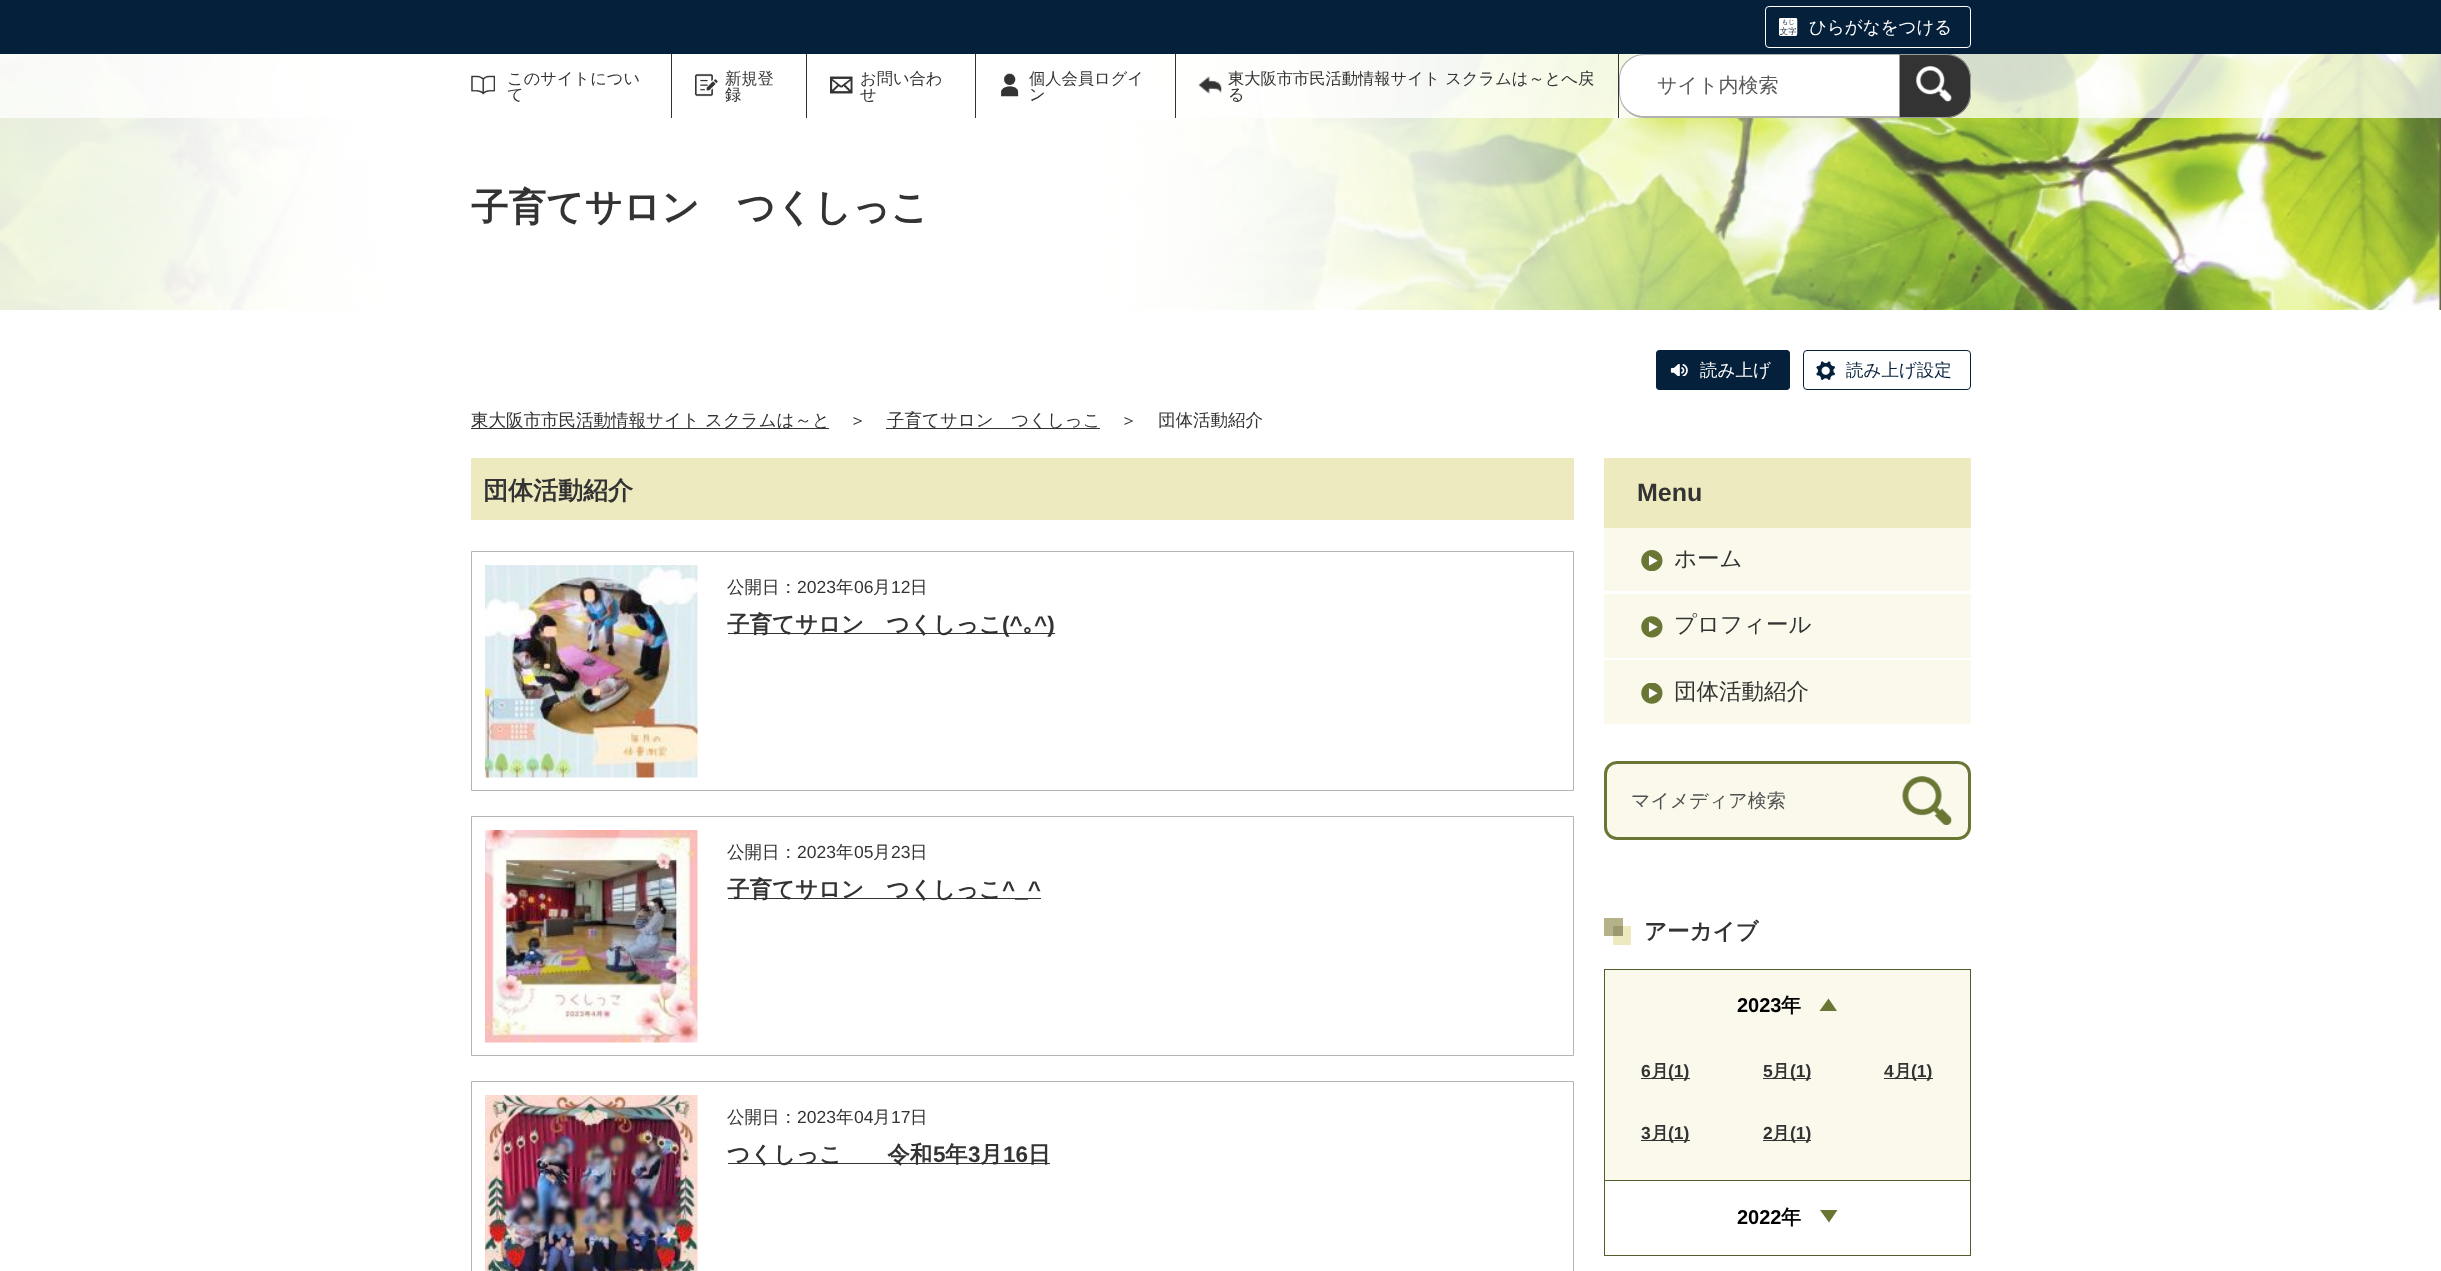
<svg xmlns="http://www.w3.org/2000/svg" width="2441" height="1271">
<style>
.a{font:500 17.5px WenQuanYi Zen Hei;fill:#fff}
.b{font:500 16.25px WenQuanYi Zen Hei;fill:#333}
.c{font:500 20px WenQuanYi Zen Hei;fill:#595959}
.d{font:bold 37.5px WenQuanYi Zen Hei;fill:#333}
.e{font:500 17.5px WenQuanYi Zen Hei;fill:#05203a}
.f{font:500 17.5px WenQuanYi Zen Hei;fill:#333}
.g{font:bold 25px WenQuanYi Zen Hei;fill:#333}
.h{font:17.5px Liberation Sans;fill:#333}
.i{font:bold 22.5px WenQuanYi Zen Hei;fill:#333}
.j{font:bold 22.5px Liberation Sans;fill:#333}
.k{font:bold 22.5px IPAPGothic;fill:#333}
.l{font:bold 25px Liberation Sans;fill:#333}
.m{font:500 22.5px WenQuanYi Zen Hei;fill:#333}
.n{font:500 19px WenQuanYi Zen Hei;fill:#515151}
.o{font:bold 20px Liberation Sans;fill:#000}
.p{font:bold 20px WenQuanYi Zen Hei;fill:#000}
.q{font:bold 17.5px Liberation Sans;fill:#333}
.r{font:bold 17.5px WenQuanYi Zen Hei;fill:#333}
</style>
<rect width="100%" height="100%" fill="#fff"/>
<image href="1.png" x="0" y="54" width="2441" height="256"/>
<path fill="#ffffffbf" d="M0 54h2441v64H0z"/>
<path fill="#05203a" d="M0 0h2441v54H0z"/>
<image href="2.png" x="1779" y="18" width="19" height="18"/>
<rect fill="none" stroke="#fff" x="1765.5" y="6.5" width="205" height="41" rx="3.5"/>
<path fill="#333" d="M671 54h1v64H671z"/>
<image href="3.png" x="471" y="75" width="24" height="20"/>
<path fill="#333" d="M806 54h1v64H806z"/>
<image href="4.png" x="695" y="73" width="23" height="24"/>
<path fill="#333" d="M975 54h1v64H975z"/>
<image href="5.png" x="830" y="76" width="23" height="18"/>
<path fill="#333" d="M1175 54h1v64H1175z"/>
<image href="6.png" x="1000" y="73" width="19" height="24"/>
<path fill="#333" d="M1618 54h1v64H1618z"/>
<image href="7.png" x="1198" y="76" width="24" height="18"/>
<path fill="#fff" d="M1644 54h255v64h-255c-14 0-25-11-25-25v-14c0-14 11-25 25-25z"/>
<path fill="#a7a7a7e6" fill-rule="evenodd" d="M1644 54h255v64h-255c-14 0-25-12-25-26v-13c0-14 11-25 25-25zm0 1h255v61h-255c-13 0-24-10-24-24v-13c0-13 11-24 24-24z"/>
<path fill="#333" d="M1899 54h47c14 0 25 11 25 25v14c0 14-11 25-25 25h-47z"/>
<path fill="none" stroke="#a7a7a7e6" d="M1899.5 54.5h46.5c13.5 0 24.5 11 24.5 24.5v14c0 13.5-11 24.5-24.5 24.5h-46.5z"/>
<image href="8.png" x="1916" y="66" width="36" height="36"/>
<rect fill="#05203a" x="1656" y="350" width="134" height="40" rx="4"/>
<image href="9.png" x="1670" y="364" width="18" height="12"/>
<rect fill="none" stroke="#05203a" x="1656.5" y="350.5" width="133" height="39" rx="3.5"/>
<image href="10.png" x="1816" y="361" width="19" height="19"/>
<rect fill="none" stroke="#05203a" x="1803.5" y="350.5" width="167" height="39" rx="3.5"/>
<path fill="#333" d="M471 428h358v1H471z"/>
<path fill="#333" d="M886 428h214v1H886z"/>
<path fill="#eeeabf" d="M471 458h1103v62H471z"/>
<path fill="none" stroke="#b4b4b4" d="M471.5 551.5h1102v239H471.5z"/>
<image href="11.png" x="485" y="565" width="213" height="213"/>
<path fill="#333" d="M728 633h327v1H728z"/>
<path fill="none" stroke="#b4b4b4" d="M471.5 816.5h1102v239H471.5z"/>
<image href="12.png" x="485" y="830" width="213" height="213"/>
<path fill="#333" d="M728 898h313v1H728z"/>
<path fill="none" stroke="#b4b4b4" d="M471.5 1081.5h1102v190H471.5z"/>
<image href="13.png" x="485" y="1095" width="213" height="176"/>
<path fill="#333" d="M728 1163h322v1H728z"/>
<path fill="#eeeabf" d="M1604 458h367v70H1604z"/>
<path fill="#faf9ec" d="M1604 528h367v63H1604z"/>
<image href="14.png" x="1641" y="550" width="22" height="21"/>
<path fill="#faf9ec" d="M1604 594h367v64H1604z"/>
<image href="15.png" x="1641" y="616" width="22" height="22"/>
<path fill="#faf9ec" d="M1604 660h367v64H1604z"/>
<image href="16.png" x="1641" y="683" width="22" height="21"/>
<rect fill="#faf9ec" stroke="#697634" stroke-width="3" x="1605.5" y="762.5" width="364" height="76" rx="11.5"/>
<image href="17.png" x="1902" y="776" width="50" height="49"/>
<path fill="#b5b188" d="M1604 918h19v18H1604z"/>
<path fill="#eeeabf" d="M1613 926h18v19H1613z"/>
<path fill="#9c986f" d="M1613 926h10v10H1613z"/>
<path fill="#535d2a" d="M1604 1255h367v1H1604z"/>
<path fill="#faf9ec" d="M1605 970h365v210H1605z"/>
<path fill="#535d2a" d="M1604 969h367v1H1604z"/>
<path fill="#535d2a" d="M1970 969h1v211H1970z"/>
<path fill="#535d2a" d="M1604 969h1v211H1604z"/>
<path fill="#697634" d="M1837 1011h-17.5l9-12.5z"/>
<path fill="#333" d="M1641 1078h49v1H1641z"/>
<path fill="#333" d="M1763 1078h48v1H1763z"/>
<path fill="#333" d="M1884 1078h49v1H1884z"/>
<path fill="#333" d="M1641 1140h49v1H1641z"/>
<path fill="#333" d="M1763 1140h48v1H1763z"/>
<path fill="#535d2a" d="M1604 1180h367v1H1604z"/>
<path fill="#535d2a" d="M1970 1180h1v75H1970z"/>
<path fill="#535d2a" d="M1604 1180h1v75H1604z"/>
<path fill="#697634" d="M1820 1210h17.5l-8.5 12.5z"/>
<text class="a" x="1809" y="33">ひらがなをつける</text>
<text class="b" x="507" y="84">このサイトについ</text>
<text class="b" x="507" y="100">て</text>
<text class="b" x="725" y="84">新規登</text>
<text class="b" x="725" y="100">録</text>
<text class="b" x="860" y="84">お問い合わ</text>
<text class="b" x="860" y="100">せ</text>
<text class="b" x="1029" y="84">個人会員ログイ</text>
<text class="b" x="1029" y="100">ン</text>
<text class="b" x="1228" y="84">東大阪市市民活動情報サイト スクラムは～とへ戻</text>
<text class="b" x="1228" y="100">る</text>
<text class="c" x="1657" y="92">サイト内検索</text>
<text class="d" x="471" y="220">子育てサロン　つくしっこ</text>
<text class="a" x="1700" y="376">読み上げ</text>
<text class="e" x="1846" y="376">読み上げ設定</text>
<text class="f" x="471" y="426">東大阪市市民活動情報サイト スクラムは～と</text>
<text class="f" x="849" y="426">＞</text>
<text class="f" x="887" y="426">子育てサロン　つくしっこ</text>
<text class="f" x="1120" y="426">＞</text>
<text class="f" x="1158" y="426">団体活動紹介</text>
<text class="g" x="483" y="499">団体活動紹介</text>
<text class="f" x="727" y="593">公開日：</text>
<text class="h" x="797" y="593">2023</text>
<text class="f" x="836" y="593">年</text>
<text class="h" x="854" y="593">06</text>
<text class="f" x="873" y="593">月</text>
<text class="h" x="891" y="593">12</text>
<text class="f" x="910" y="593">日</text>
<text class="i" x="727" y="632">子育てサロン　つくしっこ</text>
<text class="j" x="1002" y="632">(^</text>
<text class="k" x="1023" y="632">｡</text>
<text class="j" x="1034" y="632">^)</text>
<text class="f" x="727" y="858">公開日：</text>
<text class="h" x="797" y="858">2023</text>
<text class="f" x="836" y="858">年</text>
<text class="h" x="854" y="858">05</text>
<text class="f" x="873" y="858">月</text>
<text class="h" x="891" y="858">23</text>
<text class="f" x="910" y="858">日</text>
<text class="i" x="727" y="897">子育てサロン　つくしっこ</text>
<text class="j" x="1002" y="897">^_^</text>
<text class="f" x="727" y="1123">公開日：</text>
<text class="h" x="797" y="1123">2023</text>
<text class="f" x="836" y="1123">年</text>
<text class="h" x="854" y="1123">04</text>
<text class="f" x="873" y="1123">月</text>
<text class="h" x="891" y="1123">17</text>
<text class="f" x="910" y="1123">日</text>
<text class="i" x="727" y="1162">つくしっこ　　令和</text>
<text class="j" x="933" y="1162">5</text>
<text class="i" x="945" y="1162">年</text>
<text class="j" x="968" y="1162">3</text>
<text class="i" x="980" y="1162">月</text>
<text class="j" x="1003" y="1162">16</text>
<text class="i" x="1028" y="1162">日</text>
<text class="l" x="1637" y="501">Menu</text>
<text class="m" x="1674" y="566">ホーム</text>
<text class="m" x="1674" y="632">プロフィール</text>
<text class="m" x="1674" y="699">団体活動紹介</text>
<text class="n" x="1631" y="807">マイメディア検索</text>
<text class="i" x="1644" y="939">アーカイブ</text>
<text class="o" x="1737" y="1012">2023</text>
<text class="p" x="1781" y="1012">年</text>
<text class="q" x="1641" y="1077">6</text>
<text class="r" x="1651" y="1077">月</text>
<text class="q" x="1668" y="1077">(1)</text>
<text class="q" x="1763" y="1077">5</text>
<text class="r" x="1772" y="1077">月</text>
<text class="q" x="1790" y="1077">(1)</text>
<text class="q" x="1884" y="1077">4</text>
<text class="r" x="1894" y="1077">月</text>
<text class="q" x="1911" y="1077">(1)</text>
<text class="q" x="1641" y="1139">3</text>
<text class="r" x="1651" y="1139">月</text>
<text class="q" x="1668" y="1139">(1)</text>
<text class="q" x="1763" y="1139">2</text>
<text class="r" x="1772" y="1139">月</text>
<text class="q" x="1790" y="1139">(1)</text>
<text class="o" x="1737" y="1224">2022</text>
<text class="p" x="1781" y="1224">年</text>
</svg>
